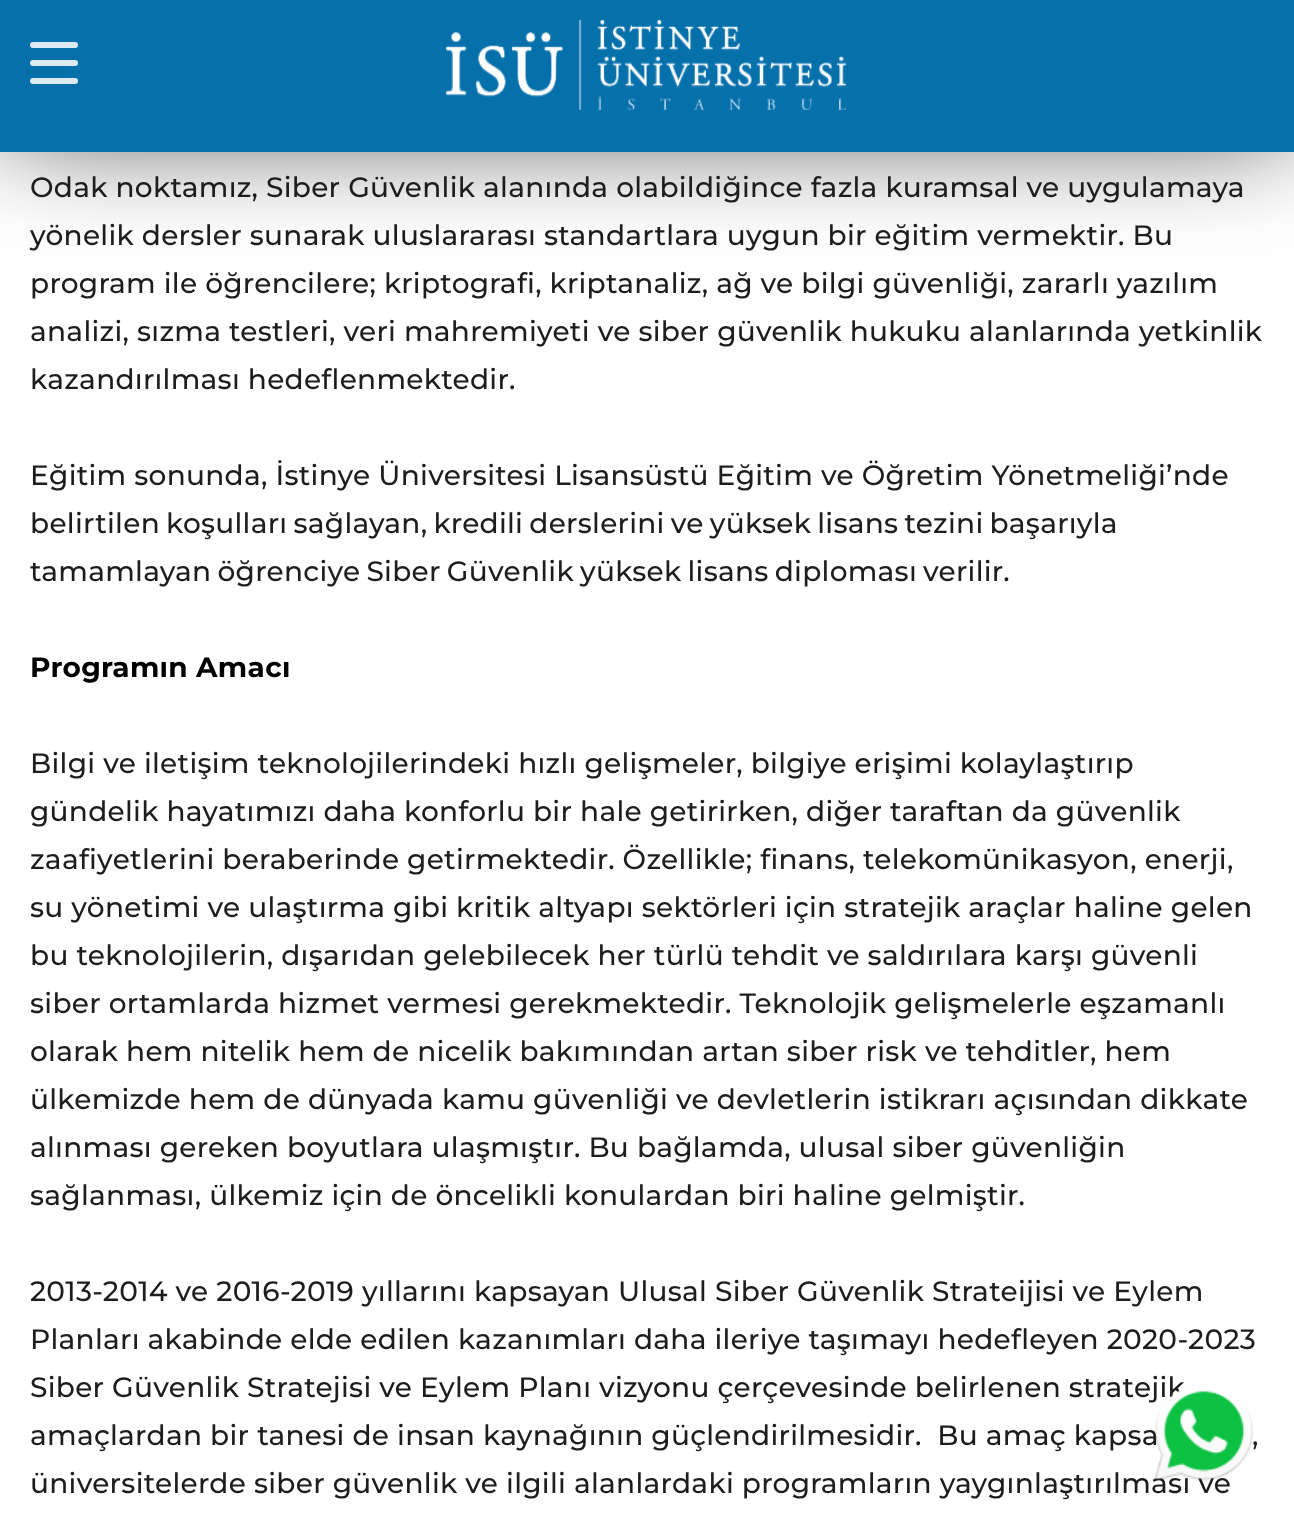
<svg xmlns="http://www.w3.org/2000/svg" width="1294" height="1521">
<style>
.a{font:500 28px Montserrat;letter-spacing:0.28px;fill:#1d1d1d}
.b{font:bold 28px Montserrat;letter-spacing:0.28px;fill:#000}
</style>
<rect width="100%" height="100%" fill="#fff"/>
<path fill="#1d1d1d" filter="blur(60px)" d="M0 -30h1294v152H0z"/>
<path fill="#0670ab" d="M0 0h1294v152H0z"/>
<rect fill="#dcebf3" x="30" y="60" width="48" height="6" rx="3"/>
<rect fill="#dcebf3" x="30" y="42" width="48" height="6" rx="3"/>
<rect fill="#dcebf3" x="30" y="78" width="48" height="6" rx="3"/>
<image href="1.png" x="446" y="20" width="401" height="90"/>
<text class="a" x="30" y="197">Odak noktamız, Siber Güvenlik alanında olabildiğince fazla kuramsal ve uygulamaya</text>
<text class="a" x="30" y="245">yönelik dersler sunarak uluslararası standartlara uygun bir eğitim vermektir. Bu</text>
<text class="a" x="30" y="293">program ile öğrencilere; kriptografi, kriptanaliz, ağ ve bilgi güvenliği, zararlı yazılım</text>
<text class="a" x="30" y="341">analizi, sızma testleri, veri mahremiyeti ve siber güvenlik hukuku alanlarında yetkinlik</text>
<text class="a" x="30" y="389">kazandırılması hedeflenmektedir.</text>
<text class="a" x="30" y="485">Eğitim sonunda, İstinye Üniversitesi Lisansüstü Eğitim ve Öğretim Yönetmeliği’nde</text>
<text class="a" x="30" y="533" word-spacing="-1.75">belirtilen koşulları sağlayan, kredili derslerini ve yüksek lisans tezini başarıyla</text>
<text class="a" x="30" y="581" word-spacing="-1.75">tamamlayan öğrenciye Siber Güvenlik yüksek lisans diploması verilir.</text>
<text class="b" x="30" y="677">Programın Amacı</text>
<text class="a" x="30" y="773">Bilgi ve iletişim teknolojilerindeki hızlı gelişmeler, bilgiye erişimi kolaylaştırıp</text>
<text class="a" x="30" y="821">gündelik hayatımızı daha konforlu bir hale getirirken, diğer taraftan da güvenlik</text>
<text class="a" x="30" y="869">zaafiyetlerini beraberinde getirmektedir. Özellikle; finans, telekomünikasyon, enerji,</text>
<text class="a" x="30" y="917">su yönetimi ve ulaştırma gibi kritik altyapı sektörleri için stratejik araçlar haline gelen</text>
<text class="a" x="30" y="965">bu teknolojilerin, dışarıdan gelebilecek her türlü tehdit ve saldırılara karşı güvenli</text>
<text class="a" x="30" y="1013">siber ortamlarda hizmet vermesi gerekmektedir. Teknolojik gelişmelerle eşzamanlı</text>
<text class="a" x="30" y="1061">olarak hem nitelik hem de nicelik bakımından artan siber risk ve tehditler, hem</text>
<text class="a" x="30" y="1109">ülkemizde hem de dünyada kamu güvenliği ve devletlerin istikrarı açısından dikkate</text>
<text class="a" x="30" y="1157">alınması gereken boyutlara ulaşmıştır. Bu bağlamda, ulusal siber güvenliğin</text>
<text class="a" x="30" y="1205">sağlanması, ülkemiz için de öncelikli konulardan biri haline gelmiştir.</text>
<text class="a" x="30" y="1301">2013-2014 ve 2016-2019 yıllarını kapsayan Ulusal Siber Güvenlik Strateijisi ve Eylem</text>
<text class="a" x="30" y="1349">Planları akabinde elde edilen kazanımları daha ileriye taşımayı hedefleyen 2020-2023</text>
<text class="a" x="30" y="1397">Siber Güvenlik Stratejisi ve Eylem Planı vizyonu çerçevesinde belirlenen stratejik</text>
<text class="a" xml:space="preserve" x="30" y="1445">amaçlardan bir tanesi de insan kaynağının güçlendirilmesidir.  Bu amaç kapsa</text>
<text class="a" x="1252" y="1445">,</text>
<text class="a" x="30" y="1493">üniversitelerde siber güvenlik ve ilgili alanlardaki programların yaygınlaştırılması ve</text>
<image href="2.png" x="1154" y="1389" width="100" height="92"/>
</svg>
